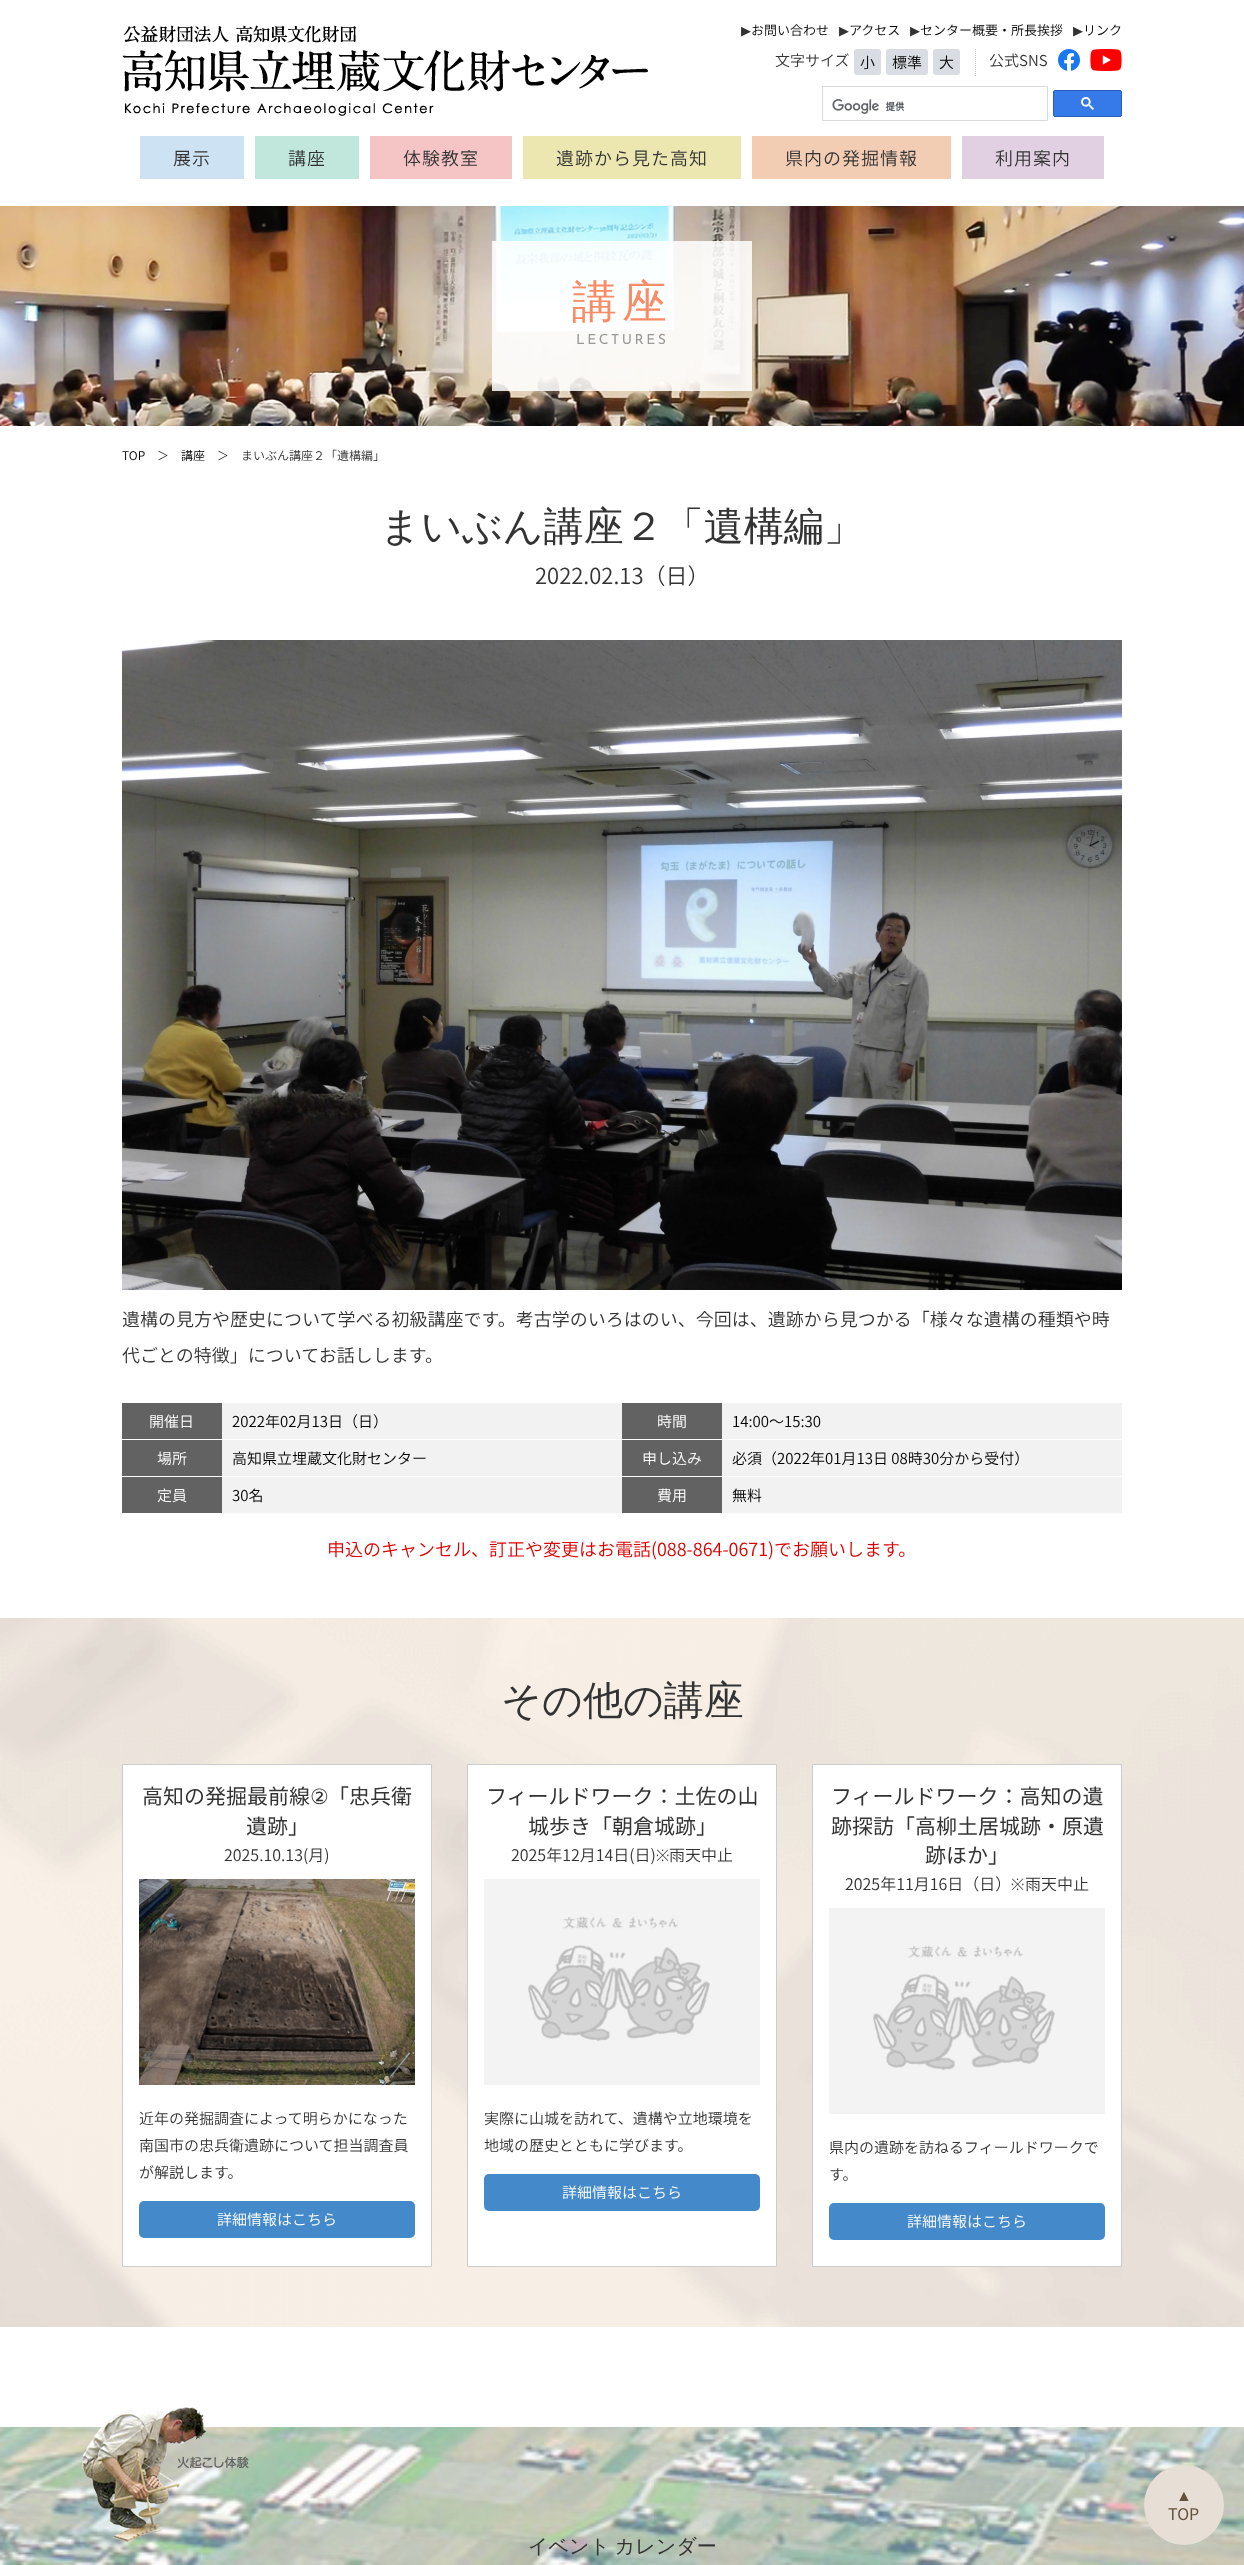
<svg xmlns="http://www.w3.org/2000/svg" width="1244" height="2565">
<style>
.a{font:13px DejaVu Sans;fill:#333}
.b{font:300 13px Noto Sans JP;fill:#000}
.c{font:300 15px Noto Sans JP;fill:#333}
.d{font:300 15px Noto Sans JP;fill:#000}
.e{font:300 18px Noto Sans JP;letter-spacing:1px;fill:#333}
.f{font:500 45px WenQuanYi Zen Hei;letter-spacing:5px;fill:#f98b66}
.g{font:100 14px Josefin Sans;letter-spacing:2.5px;fill:#999}
.h{font:300 12px Noto Sans JP;fill:#000}
.i{font:300 12px Noto Sans JP;fill:#333}
.j{font:500 40px WenQuanYi Zen Hei;fill:#333}
.k{font:300 22px Noto Sans JP;fill:#333}
.l{font:300 18px Noto Sans JP;fill:#333}
.m{font:300 15px Noto Sans JP;fill:#fff}
.n{font:300 18px Noto Sans JP;fill:#d00}
.o{font:21px Noto Sans JP;fill:#333}
.p{font:21px DejaVu Sans;fill:#333}
.q{font:300 16px Noto Sans JP;fill:#333}
.r{font:300 16px Noto Sans;fill:#333}
.s{font:500 20px WenQuanYi Zen Hei;fill:#333}
.t{font:16px Liberation Sans;fill:#64513d}
.u{font:16px Noto Sans JP;fill:#64513d}
</style>
<rect width="100%" height="100%" fill="#fff"/>
<image href="1.png" x="122" y="25" width="526" height="91"/>
<rect fill="#d9dce3" x="854" y="49" width="27" height="26" rx="3"/>
<rect fill="#d9dce3" x="886" y="49" width="42" height="26" rx="3"/>
<rect fill="#d9dce3" x="933" y="49" width="27" height="26" rx="3"/>
<path fill="none" stroke="#ccc" stroke-dasharray="1 1" d="M975.5 49v27"/>
<image href="2.png" x="1058" y="49" width="22" height="22"/>
<image href="3.png" x="1090" y="49" width="32" height="22"/>
<path fill="none" stroke="#d9d9d9" d="M822.5 86.5h225v34H822.5z"/>
<image href="4.png" x="832" y="99" width="73" height="15"/>
<rect fill="#357ae8" stroke="#2f5bb7" x="1053.5" y="90.5" width="68" height="26" rx="1.5"/>
<image href="5.png" x="1081" y="97" width="13" height="13"/>
<path fill="#cde2f3" d="M140 136h104v43H140z"/>
<path fill="#c1e7dd" d="M255 136h104v43H255z"/>
<path fill="#f5c5c6" d="M370 136h142v43H370z"/>
<path fill="#ece6b0" d="M523 136h218v43H523z"/>
<path fill="#f2cdb4" d="M752 136h199v43H752z"/>
<path fill="#e1d0e2" d="M962 136h142v43H962z"/>
<image href="6.png" x="0" y="206" width="1244" height="220"/>
<path fill="#ffffffd9" d="M492 241h260v150H492z"/>
<image href="7.png" x="122" y="640" width="1000" height="650"/>
<path fill="#626262" d="M122 1403h100v36H122z"/>
<path fill="#f2f2f2" d="M222 1403h400v36H222z"/>
<path fill="#626262" d="M622 1403h100v36H622z"/>
<path fill="#f2f2f2" d="M722 1403h400v36H722z"/>
<path fill="#626262" d="M122 1440h100v36H122z"/>
<path fill="#f2f2f2" d="M222 1440h400v36H222z"/>
<path fill="#626262" d="M622 1440h100v36H622z"/>
<path fill="#f2f2f2" d="M722 1440h400v36H722z"/>
<path fill="#626262" d="M122 1477h100v36H122z"/>
<path fill="#f2f2f2" d="M222 1477h400v36H222z"/>
<path fill="#626262" d="M622 1477h100v36H622z"/>
<path fill="#f2f2f2" d="M722 1477h400v36H722z"/>
<image href="8.png" x="0" y="1618" width="1244" height="709"/>
<path fill="#fff" stroke="#ccc" d="M122.5 1764.5h309v502H122.5z"/>
<image href="9.png" x="139" y="1879" width="276" height="206"/>
<rect fill="#448aca" x="139" y="2201" width="276" height="37" rx="5"/>
<path fill="#fff" stroke="#ccc" d="M467.5 1764.5h309v502H467.5z"/>
<image href="10.png" x="484" y="1879" width="276" height="206"/>
<rect fill="#448aca" x="484" y="2174" width="276" height="37" rx="5"/>
<path fill="#fff" stroke="#ccc" d="M812.5 1764.5h309v502H812.5z"/>
<image href="11.png" x="829" y="1908" width="276" height="206"/>
<rect fill="#448aca" x="829" y="2203" width="276" height="37" rx="5"/>
<image href="12.png" x="0" y="2427" width="1244" height="138"/>
<image href="13.png" x="82" y="2407" width="167" height="135"/>
<circle fill="#e7dfd6" cx="1184" cy="2505" r="40"/>
<text class="a" x="741" y="35">▶</text>
<text class="b" x="751" y="35">お問い合わせ</text>
<text class="a" x="839" y="35">▶</text>
<text class="b" x="849" y="35">アクセス</text>
<text class="a" x="910" y="35">▶</text>
<text class="b" x="920" y="35">センター概要・所長挨拶</text>
<text class="a" x="1073" y="35">▶</text>
<text class="b" x="1083" y="35">リンク</text>
<text class="c" x="775" y="66">文字サイズ</text>
<text class="d" x="860" y="68">小</text>
<text class="d" x="892" y="68">標準</text>
<text class="d" x="939" y="68">大</text>
<text class="c" x="989" y="66">公式SNS</text>
<text class="e" x="173" y="165">展示</text>
<text class="e" x="288" y="165">講座</text>
<text class="e" x="403" y="165">体験教室</text>
<text class="e" x="556" y="165">遺跡から見た高知</text>
<text class="e" x="785" y="165">県内の発掘情報</text>
<text class="e" x="995" y="165">利用案内</text>
<text class="f" x="572" y="317">講座</text>
<text class="g" x="576" y="344">LECTURES</text>
<text class="h" x="122" y="460">TOP</text>
<text class="i" x="157" y="460">＞</text>
<text class="h" x="181" y="460">講座</text>
<text class="i" x="217" y="460">＞　まいぶん講座２「遺構編」</text>
<text class="j" x="380" y="540">まいぶん講座２「遺構編」</text>
<text class="k" x="535" y="584">2022.02.13（日）</text>
<text class="l" x="122" y="1326">遺構の見方や歴史について学べる初級講座です。考古学のいろはのい、今回は、遺跡から見つかる「様々な遺構の種類や時</text>
<text class="l" x="122" y="1362">代ごとの特徴」についてお話しします。</text>
<text class="m" x="149" y="1427">開催日</text>
<text class="d" x="232" y="1427">2022年02月13日（日）</text>
<text class="m" x="657" y="1427">時間</text>
<text class="d" x="732" y="1427">14:00〜15:30</text>
<text class="m" x="157" y="1464">場所</text>
<text class="d" x="232" y="1464">高知県立埋蔵文化財センター</text>
<text class="m" x="642" y="1464">申し込み</text>
<text class="d" x="732" y="1464">必須（2022年01月13日 08時30分から受付）</text>
<text class="m" x="157" y="1501">定員</text>
<text class="d" x="232" y="1501">30名</text>
<text class="m" x="657" y="1501">費用</text>
<text class="d" x="732" y="1501">無料</text>
<text class="n" x="327" y="1556">申込のキャンセル、訂正や変更はお電話(088-864-0671)でお願いします。</text>
<text class="j" x="501" y="1714">その他の講座</text>
<text class="o" x="142" y="1804">高知の発掘最前線</text>
<text class="p" x="310" y="1804">②</text>
<text class="o" x="328" y="1804">「忠兵衛</text>
<text class="o" x="246" y="1834">遺跡」</text>
<text class="q" x="224" y="1861">2025.10.13(月)</text>
<text class="c" x="139" y="2124">近年の発掘調査によって明らかになった</text>
<text class="c" x="139" y="2151">南国市の忠兵衛遺跡について担当調査員</text>
<text class="c" x="139" y="2178">が解説します。</text>
<text class="m" x="217" y="2225">詳細情報はこちら</text>
<text class="o" x="486" y="1804">フィールドワーク：土佐の山</text>
<text class="o" x="528" y="1834">城歩き「朝倉城跡」</text>
<text class="q" x="511" y="1861">2025年12月14日(日)</text>
<text class="r" x="656" y="1861">※</text>
<text class="q" x="669" y="1861">雨天中止</text>
<text class="c" x="484" y="2124">実際に山城を訪れて、遺構や立地環境を</text>
<text class="c" x="484" y="2151">地域の歴史とともに学びます。</text>
<text class="m" x="562" y="2198">詳細情報はこちら</text>
<text class="o" x="831" y="1804">フィールドワーク：高知の遺</text>
<text class="o" x="831" y="1834">跡探訪「高柳土居城跡・原遺</text>
<text class="o" x="925" y="1863">跡ほか」</text>
<text class="q" x="845" y="1890">2025年11月16日（日）</text>
<text class="r" x="1011" y="1890">※</text>
<text class="q" x="1025" y="1890">雨天中止</text>
<text class="c" x="829" y="2153">県内の遺跡を訪ねるフィールドワークで</text>
<text class="c" x="829" y="2180">す。</text>
<text class="m" x="907" y="2227">詳細情報はこちら</text>
<text class="s" x="528" y="2553" word-spacing="-1">イベント カレンダー</text>
<text class="t" x="1176" y="2501">▲</text>
<text class="u" x="1168" y="2520">TOP</text>
</svg>
